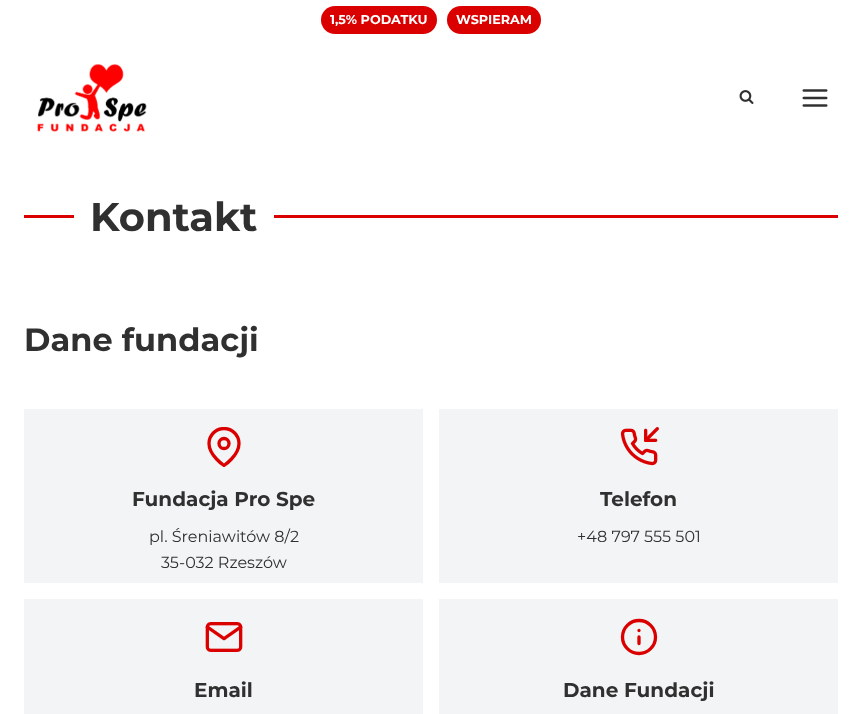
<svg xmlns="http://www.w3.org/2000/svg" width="862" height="714">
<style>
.a{font:bold 12.75px Montserrat;fill:#fff}
.b{font:bold 40px Montserrat;fill:#303030}
.c{font:bold 32px Montserrat;fill:#303030}
.d{font:bold 20px Montserrat;fill:#303030}
.e{font:16px Montserrat;fill:#303030}
</style>
<defs>
<clipPath id="clip1"><path d="M204 427h40v40H204z"/></clipPath>
</defs>
<rect width="100%" height="100%" fill="#fff"/>
<rect fill="#db0000" x="321" y="6" width="116" height="28" rx="14"/>
<rect fill="#db0000" x="447" y="6" width="94" height="28" rx="14"/>
<image href="1.png" x="37" y="64" width="110" height="68"/>
<image href="2.png" x="739" y="90" width="15" height="14"/>
<image href="3.png" x="802" y="89" width="26" height="18"/>
<path fill="#db0000" d="M24 215h50v3H24z"/>
<path fill="#db0000" d="M274 215h564v3H274z"/>
<path fill="#f2f4f5" d="M24 409h399v174H24z"/>
<g clip-path="url(#clip1)">
<path fill="none" stroke="#db0000" stroke-width="3.3" stroke-linecap="round" stroke-linejoin="round" d="M239 443.5c0 12-15 22-15 22c0 0-15-10-15-22c0-8 6.5-15 15-15c8.5 0 15 7 15 15z"/>
</g>
<circle fill="none" stroke="#db0000" stroke-width="3.3" cx="224" cy="443.5" r="5"/>
<path fill="#f2f4f5" d="M439 409h399v174H439z"/>
<image href="4.png" x="620" y="427" width="39" height="39"/>
<path fill="#f2f4f5" d="M24 599h399v115H24z"/>
<image href="5.png" x="205" y="622" width="38" height="30"/>
<path fill="#f2f4f5" d="M439 599h399v115H439z"/>
<circle fill="none" stroke="#db0000" stroke-width="3.3" cx="639" cy="637" r="16.5"/>
<path fill="none" stroke="#db0000" stroke-width="3.3" stroke-linecap="round" stroke-linejoin="round" d="M639 643.5v-6.5m0-6.5h0"/>
<text class="a" x="330" y="24">1,5% PODATKU</text>
<text class="a" x="456" y="24">WSPIERAM</text>
<text class="b" x="90" y="231">Kontakt</text>
<text class="c" x="24" y="351">Dane fundacji</text>
<text class="d" x="132" y="506">Fundacja Pro Spe</text>
<text class="e" x="149" y="542">pl. Śreniawitów 8/2</text>
<text class="e" x="161" y="568">35-032 Rzeszów</text>
<text class="d" x="600" y="506">Telefon</text>
<text class="e" x="577" y="542">+48 797 555 501</text>
<text class="d" x="194" y="697">Email</text>
<text class="d" x="563" y="697">Dane Fundacji</text>
</svg>
